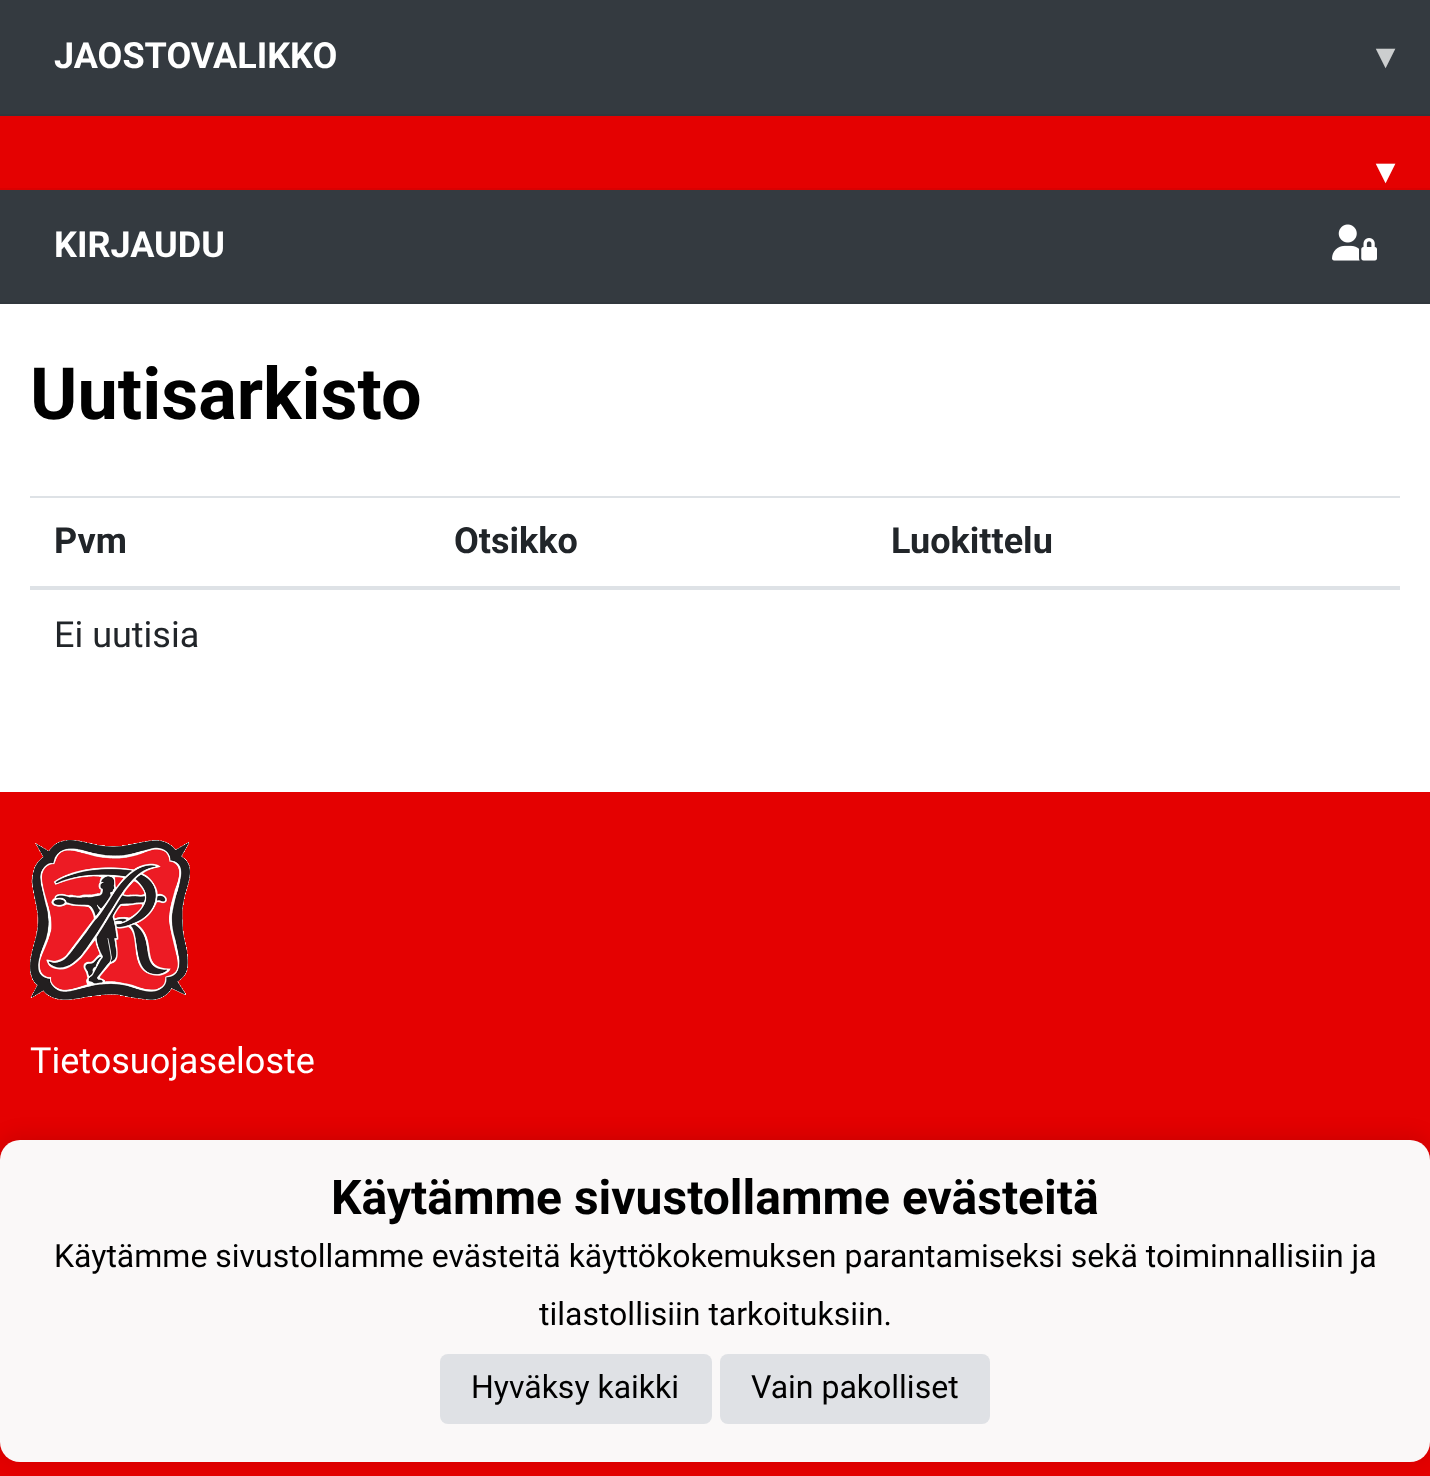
<svg xmlns="http://www.w3.org/2000/svg" width="1430" height="1476">
<style>
.a{font:bold 36px Roboto;fill:#fff}
.b{font:bold 36px DejaVu Sans;fill:#cccecf}
.c{font:bold 36px DejaVu Sans;fill:#fff}
.d{font:bold 72px Roboto;fill:#000}
.e{font:bold 36px Roboto;fill:#212529}
.f{font:36px Roboto;fill:#212529}
.g{font:36px Roboto;fill:#fff}
.h{font:bold 48px Roboto;fill:#000}
.i{font:32px Roboto;fill:#000}
</style>
<rect width="100%" height="100%" fill="#fff"/>
<path fill="#343a40" d="M0 0h1430v114H0z"/>
<path fill="#31373d" d="M0 114h1430v2H0z"/>
<path fill="#e40101" d="M0 116h1430v72H0z"/>
<path fill="#d90101" d="M0 188h1430v2H0z"/>
<path fill="#343a40" d="M0 190h1430v112H0z"/>
<path fill="#31373d" d="M0 302h1430v2H0z"/>
<image href="1.png" x="1332" y="224" width="45" height="37"/>
<path fill="#dee2e6" d="M30 496h1370v2H30z"/>
<path fill="#dee2e6" d="M30 586h1370v4H30z"/>
<path fill="#e40101" d="M0 792h1430v684H0z"/>
<image href="2.png" x="30" y="840" width="160" height="160"/>
<rect fill="#0000001a" filter="blur(10px)" y="1136" width="1430" height="322" rx="20"/>
<rect fill="#faf8f8" y="1140" width="1430" height="322" rx="20"/>
<rect fill="#dfe1e5" x="440" y="1354" width="272" height="70" rx="8"/>
<rect fill="#dfe1e5" x="720" y="1354" width="270" height="70" rx="8"/>
<text class="a" x="54" y="68">JAOSTOVALIKKO</text>
<text class="b" x="1376" y="68">▾</text>
<text class="c" x="1376" y="183">▾</text>
<text class="a" x="54" y="257">KIRJAUDU</text>
<text class="d" x="30" y="419">Uutisarkisto</text>
<text class="e" x="54" y="553">Pvm</text>
<text class="e" x="454" y="553">Otsikko</text>
<text class="e" x="891" y="553">Luokittelu</text>
<text class="f" x="54" y="647">Ei uutisia</text>
<text class="g" x="30" y="1073">Tietosuojaseloste</text>
<text class="h" x="331" y="1214">Käytämme sivustollamme evästeitä</text>
<text class="i" x="54" y="1267">Käytämme sivustollamme evästeitä käyttökokemuksen parantamiseksi sekä toiminnallisiin ja</text>
<text class="i" x="539" y="1325">tilastollisiin tarkoituksiin.</text>
<text class="i" x="471" y="1398">Hyväksy kaikki</text>
<text class="i" x="751" y="1398">Vain pakolliset</text>
</svg>
